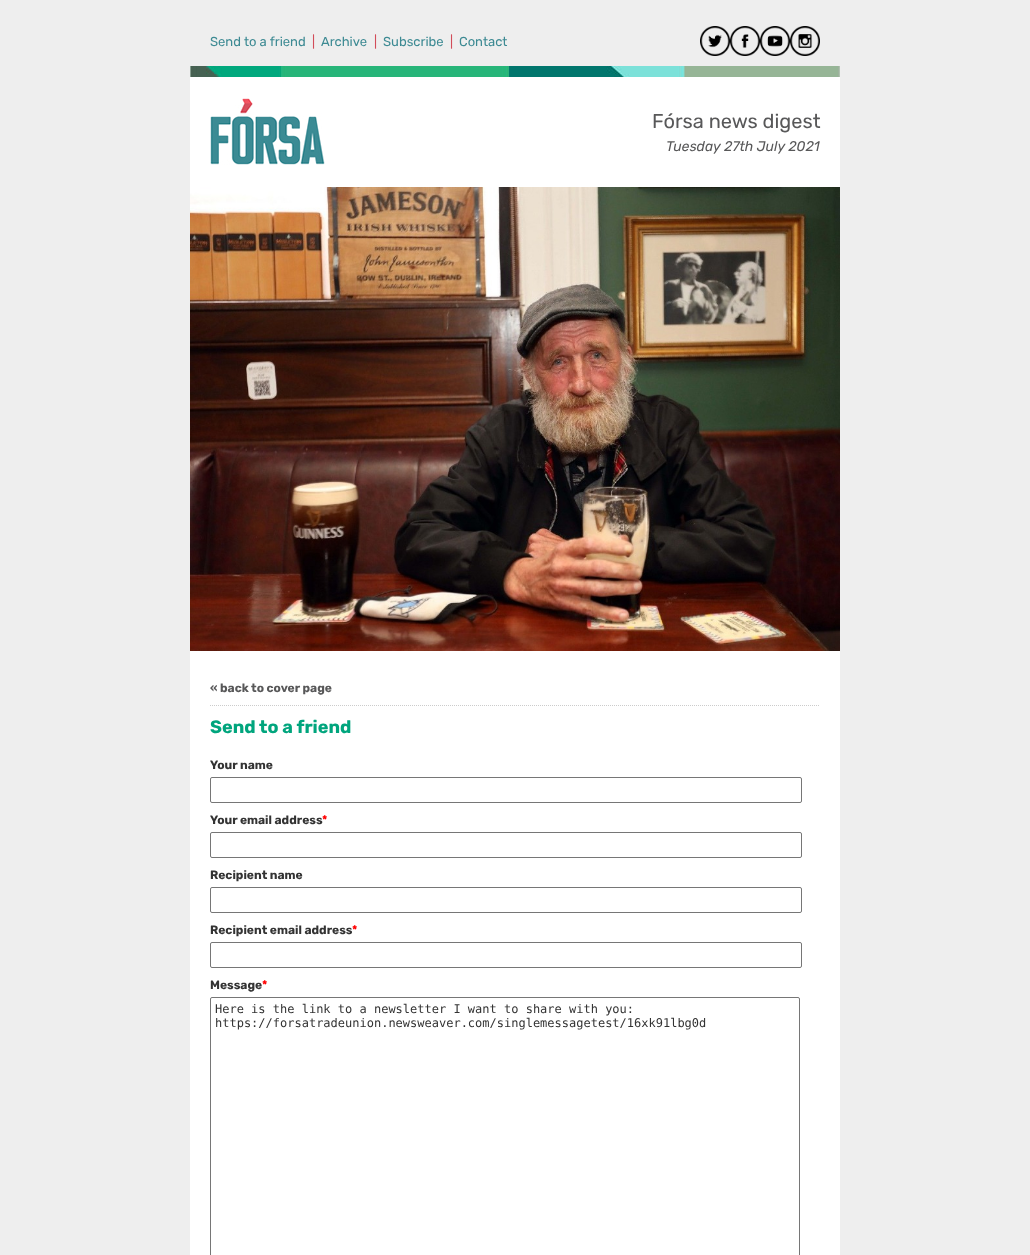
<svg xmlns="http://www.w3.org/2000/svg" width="1030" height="1255">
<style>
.a{font:13px Rubik;fill:#3d8a93}
.b{font:13px Rubik;fill:#d24c59}
.c{font:20px Rubik;fill:#585859}
.d{font:italic 14px Rubik;fill:#585859}
.e{font:bold 12px Rubik;fill:#585859}
.f{font:bold 18px Rubik;fill:#00a57d}
.g{font:bold 12px Rubik;fill:#333}
.h{font:bold 12px Rubik;fill:#f00}
.i{font:12px DejaVu Sans Mono;fill:#333}
</style>
<rect width="100%" height="100%" fill="#eee"/>
<path fill="#fff" d="M190 77h650v1178H190z"/>
<image href="1.png" x="700" y="26" width="30" height="30"/>
<image href="2.png" x="730" y="26" width="30" height="30"/>
<image href="3.png" x="760" y="26" width="30" height="30"/>
<image href="4.png" x="790" y="26" width="30" height="30"/>
<image href="5.png" x="190" y="66" width="650" height="11"/>
<image href="6.png" x="210" y="98" width="115" height="67"/>
<image href="7.png" x="190" y="187" width="650" height="464"/>
<path fill="none" stroke="#ccc" stroke-dasharray="1 1" d="M210 705.5h610"/>
<rect fill="none" stroke="#767676" x="210.5" y="777.5" width="591" height="25" rx="1.5"/>
<rect fill="none" stroke="#767676" x="210.5" y="832.5" width="591" height="25" rx="1.5"/>
<rect fill="none" stroke="#767676" x="210.5" y="887.5" width="591" height="25" rx="1.5"/>
<rect fill="none" stroke="#767676" x="210.5" y="942.5" width="591" height="25" rx="1.5"/>
<rect fill="none" stroke="#767676" x="210.5" y="997.5" width="589" height="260" rx="1.5"/>
<text class="a" x="210" y="46">Send to a friend</text>
<text class="b" x="312" y="46">|</text>
<text class="a" x="321" y="46">Archive</text>
<text class="b" x="374" y="46">|</text>
<text class="a" x="383" y="46">Subscribe</text>
<text class="b" x="450" y="46">|</text>
<text class="a" x="459" y="46">Contact</text>
<text class="c" x="652" y="128">Fórsa news digest</text>
<text class="d" x="666" y="151">Tuesday 27th July 2021</text>
<text class="e" x="210" y="692">« back to cover page</text>
<text class="f" x="210" y="733">Send to a friend</text>
<text class="g" x="210" y="769">Your name</text>
<text class="g" x="210" y="824">Your email address</text>
<text class="h" x="322" y="824">*</text>
<text class="g" x="210" y="879">Recipient name</text>
<text class="g" x="210" y="934">Recipient email address</text>
<text class="h" x="352" y="934">*</text>
<text class="g" x="210" y="989">Message</text>
<text class="h" x="262" y="989">*</text>
<text class="i" x="215" y="1013">Here is the link to a newsletter I want to share with you:</text>
<text class="i" x="215" y="1027">https://forsatradeunion.newsweaver.com/singlemessagetest/16xk91lbg0d</text>
</svg>
